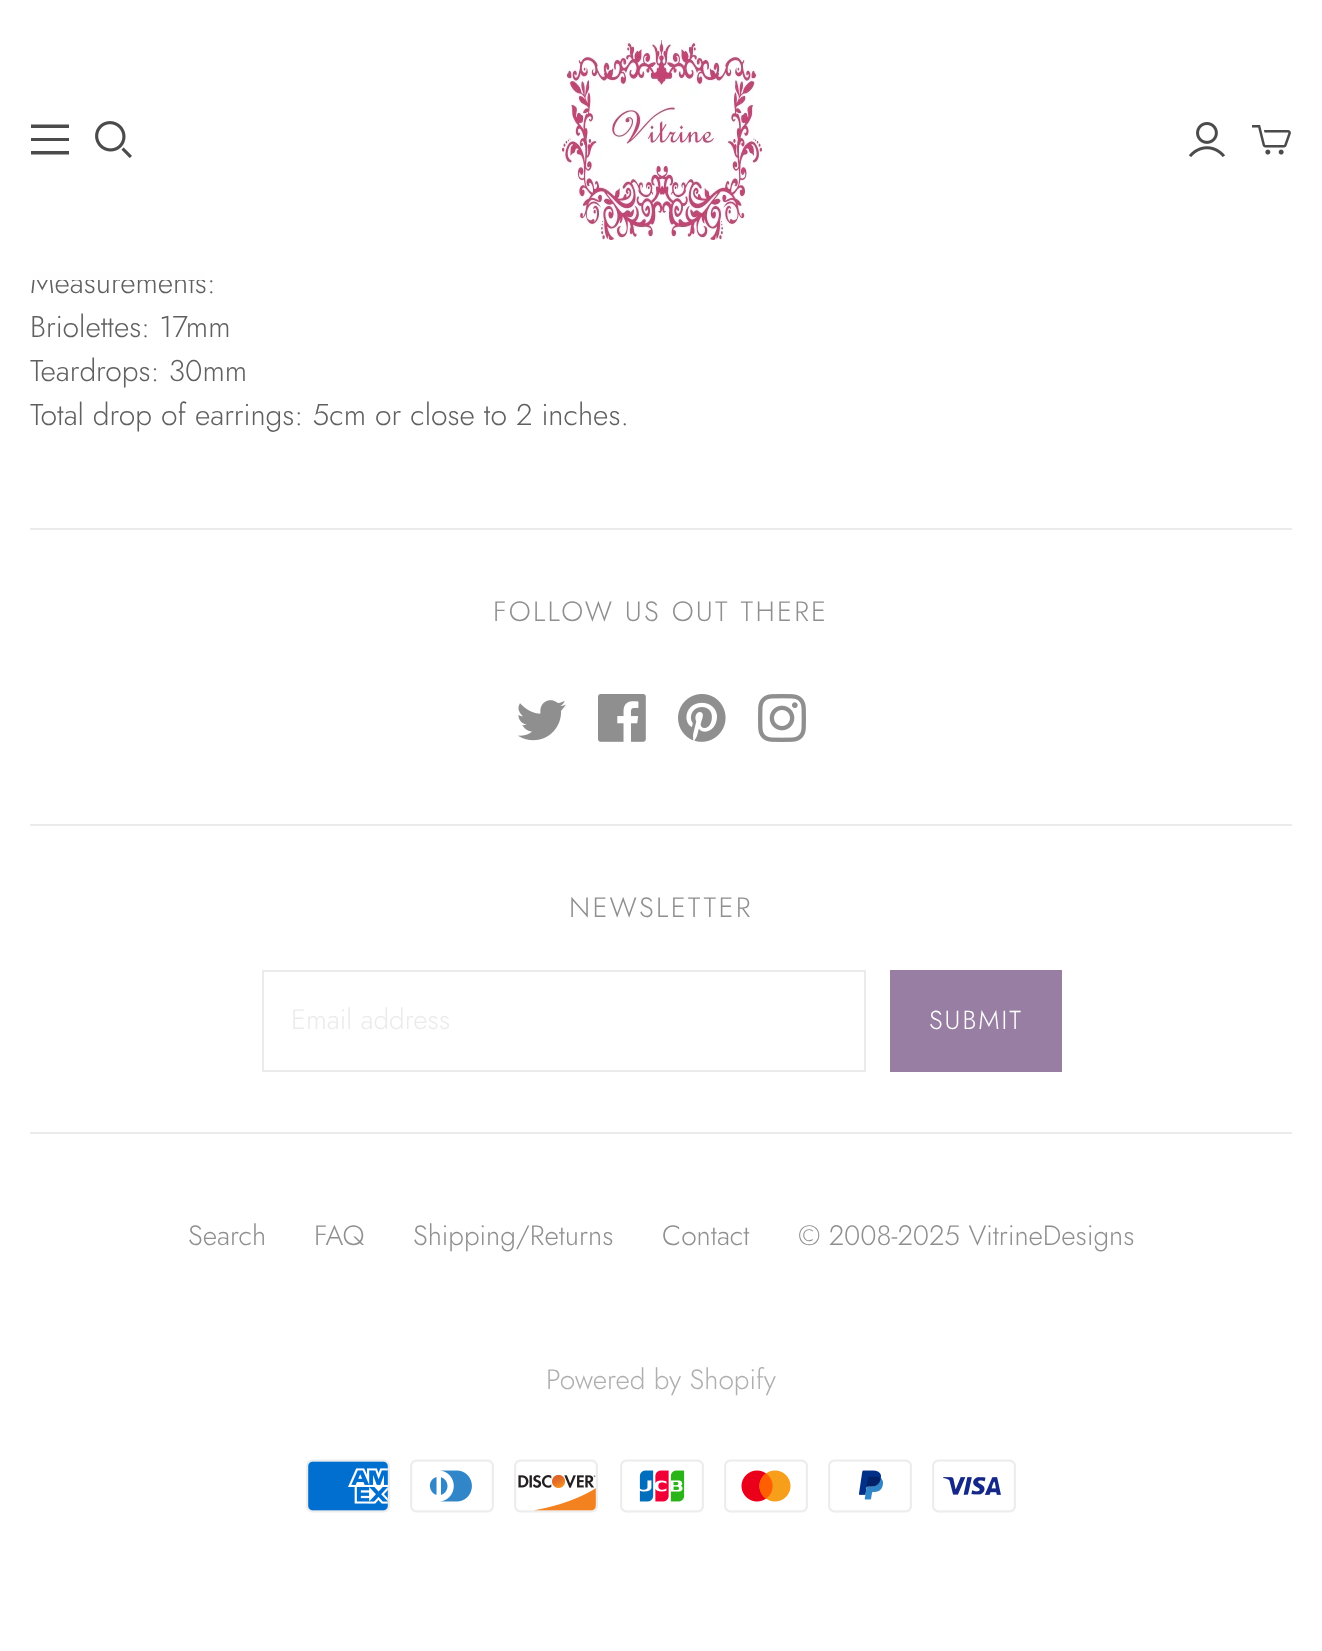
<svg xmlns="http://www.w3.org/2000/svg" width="1322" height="1651">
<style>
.a{font:300 30px Jost;fill:#606060}
.b{font:300 28px Jost;letter-spacing:2.25px;fill:#8f8f8f}
.c{font:300 28px Jost;fill:#ebebeb}
.d{font:300 26px Jost;letter-spacing:2px;fill:#fff}
.e{font:300 28px Jost;fill:#8f8f8f}
.f{font:300 28px Jost;fill:#afafaf}
</style>
<rect width="100%" height="100%" fill="#fff"/>
<image href="1.png" x="562" y="40" width="200" height="200"/>
<path fill="#4b4b4b" fill-rule="evenodd" d="M69 128h-38v-3.5h38zm0 13h-38v-3h38zm-38 13.5h38v-3.5h-38z"/>
<image href="2.png" x="95" y="121" width="37" height="37"/>
<image href="3.png" x="1188" y="122" width="37" height="35"/>
<image href="4.png" x="1252" y="125" width="39" height="30"/>
<path fill="#ebebeb" d="M30 528h1262v2H30z"/>
<path fill="#ebebeb" d="M30 1132h1262v2H30z"/>
<image href="5.png" x="518" y="700" width="48" height="41"/>
<image href="6.png" x="598" y="694" width="48" height="48"/>
<image href="7.png" x="678" y="694" width="48" height="48"/>
<image href="8.png" x="758" y="694" width="48" height="48"/>
<path fill="#ebebeb" d="M30 824h1262v2H30z"/>
<path fill="none" stroke="#ebebeb" stroke-width="2" d="M263 971h602v100H263z"/>
<path fill="#977ea2" d="M890 970h172v102H890z"/>
<image href="9.png" x="306" y="1459" width="84" height="54"/>
<image href="10.png" x="410" y="1459" width="84" height="54"/>
<image href="11.png" x="514" y="1459" width="84" height="54"/>
<image href="12.png" x="620" y="1459" width="84" height="54"/>
<image href="13.png" x="724" y="1459" width="84" height="54"/>
<image href="14.png" x="828" y="1459" width="84" height="54"/>
<image href="15.png" x="932" y="1459" width="84" height="54"/>
<text class="a" x="30" y="293">Measurements:</text>
<path fill="#fefefe" d="M32 271h172v9H32z"/>
<text class="a" x="30" y="337">Briolettes: 17mm</text>
<text class="a" x="30" y="381">Teardrops: 30mm</text>
<text class="a" x="30" y="425">Total drop of earrings: 5cm or close to 2 inches.</text>
<text class="b" x="493" y="621">FOLLOW US OUT THERE</text>
<text class="b" x="569" y="917">NEWSLETTER</text>
<text class="c" x="291" y="1029">Email address</text>
<text class="d" x="929" y="1029">SUBMIT</text>
<text class="e" x="188" y="1245">Search</text>
<text class="e" x="314" y="1245">FAQ</text>
<text class="e" x="413" y="1245">Shipping/Returns</text>
<text class="e" x="662" y="1245">Contact</text>
<text class="e" x="798" y="1245">© 2008-2025 VitrineDesigns</text>
<text class="f" x="546" y="1389">Powered by Shopify</text>
</svg>
